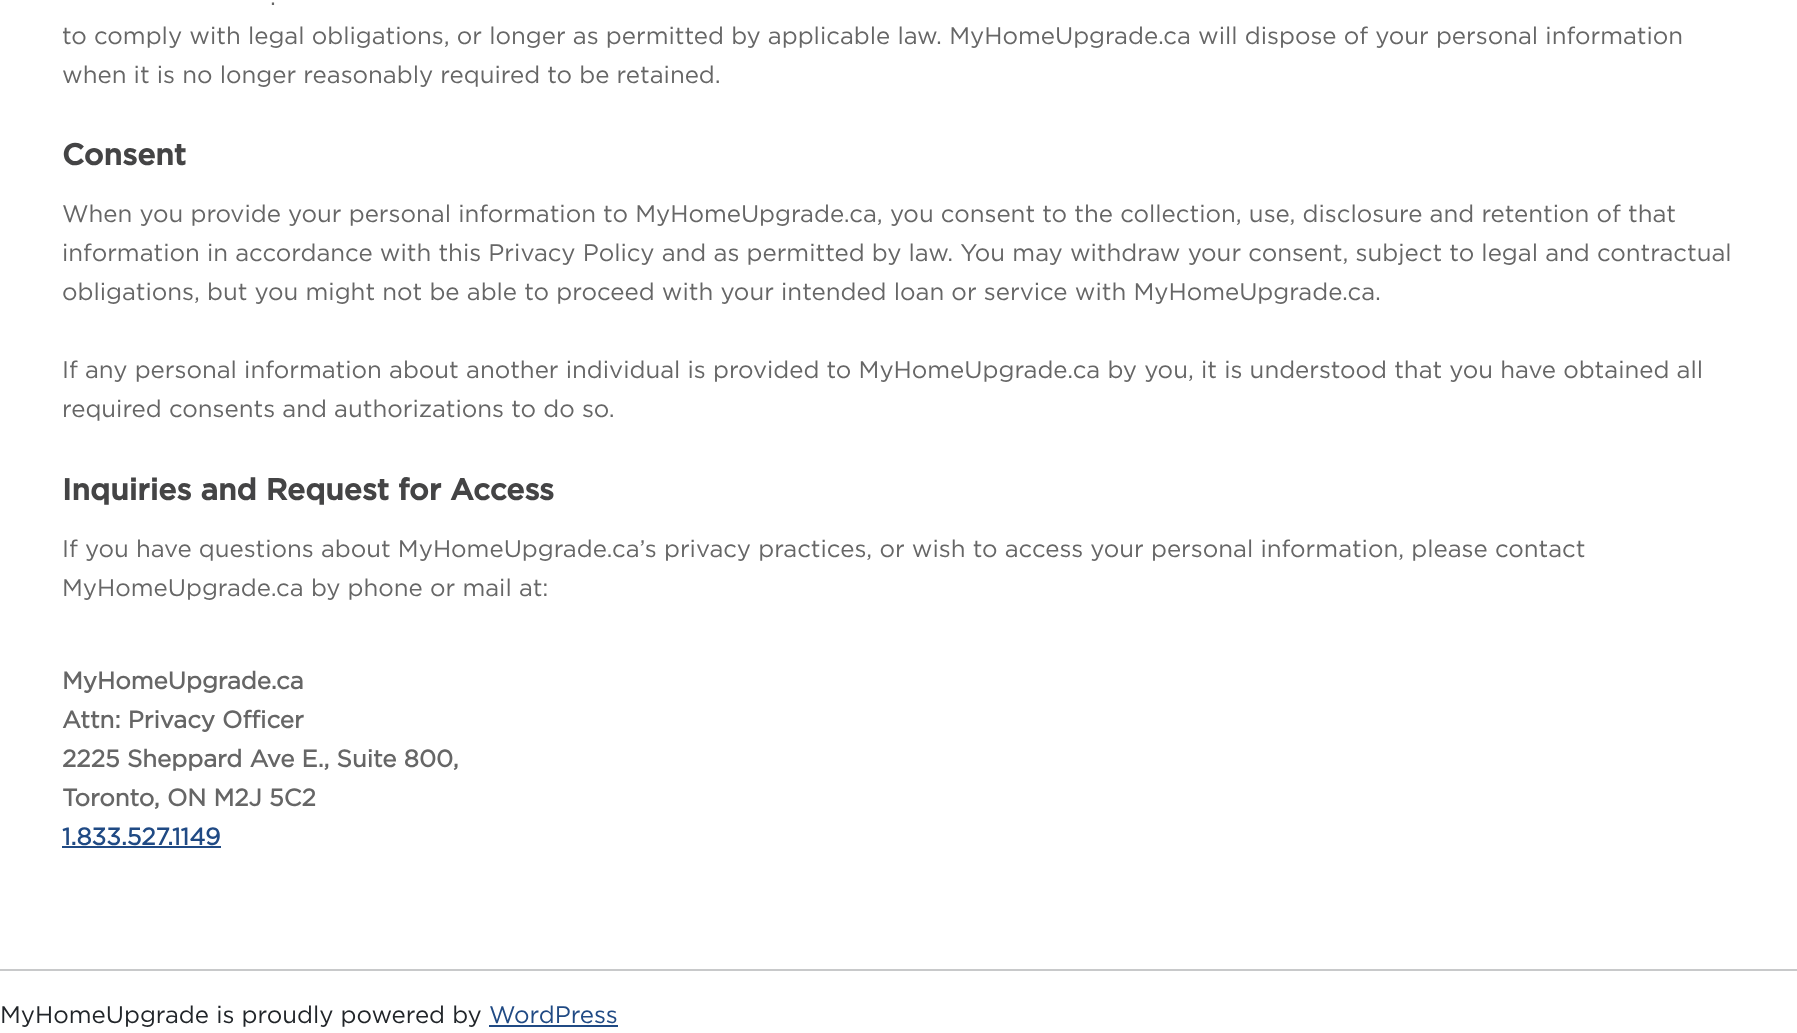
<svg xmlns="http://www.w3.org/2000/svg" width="1797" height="1033">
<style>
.a{font:24px Gotham;fill:#666}
.b{font:bold 30px Gotham;fill:#444445}
.c{font:bold 24px 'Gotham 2';fill:#666}
.d{font:bold 24px 'Gotham 2';fill:#204a84}
.e{font:24px Gotham;fill:#212529}
.f{font:24px Gotham;fill:#204a84}
</style>
<rect width="100%" height="100%" fill="#fff"/>
<path fill="#204a84" d="M62 846h159v2H62z"/>
<path fill="#c8c9ca" d="M0 969h1797v2H0z"/>
<path fill="#204a84" d="M489 1025h129v2H489z"/>
<text class="a" x="270" y="5">.</text>
<text class="a" x="62" y="44">to comply with legal obligations, or longer as permitted by applicable law. MyHomeUpgrade.ca will dispose of your personal information</text>
<text class="a" x="62" y="83">when it is no longer reasonably required to be retained.</text>
<text class="b" x="62" y="165">Consent</text>
<text class="a" x="62" y="222">When you provide your personal information to MyHomeUpgrade.ca, you consent to the collection, use, disclosure and retention of that</text>
<text class="a" x="62" y="261">information in accordance with this Privacy Policy and as permitted by law. You may withdraw your consent, subject to legal and contractual</text>
<text class="a" x="62" y="300">obligations, but you might not be able to proceed with your intended loan or service with MyHomeUpgrade.ca.</text>
<text class="a" x="62" y="378">If any personal information about another individual is provided to MyHomeUpgrade.ca by you, it is understood that you have obtained all</text>
<text class="a" x="62" y="417">required consents and authorizations to do so.</text>
<text class="b" x="62" y="500">Inquiries and Request for Access</text>
<text class="a" x="62" y="557">If you have questions about MyHomeUpgrade.ca’s privacy practices, or wish to access your personal information, please contact</text>
<text class="a" x="62" y="596">MyHomeUpgrade.ca by phone or mail at:</text>
<text class="c" x="62" y="689">MyHomeUpgrade.ca</text>
<text class="c" x="62" y="728">Attn: Privacy Officer</text>
<text class="c" x="62" y="767">2225 Sheppard Ave E., Suite 800,</text>
<text class="c" x="62" y="806">Toronto, ON M2J 5C2</text>
<text class="d" x="62" y="845">1.833.527.1149</text>
<text class="e" x="0" y="1023">MyHomeUpgrade is proudly powered by</text>
<text class="f" x="489" y="1023">WordPress</text>
</svg>
